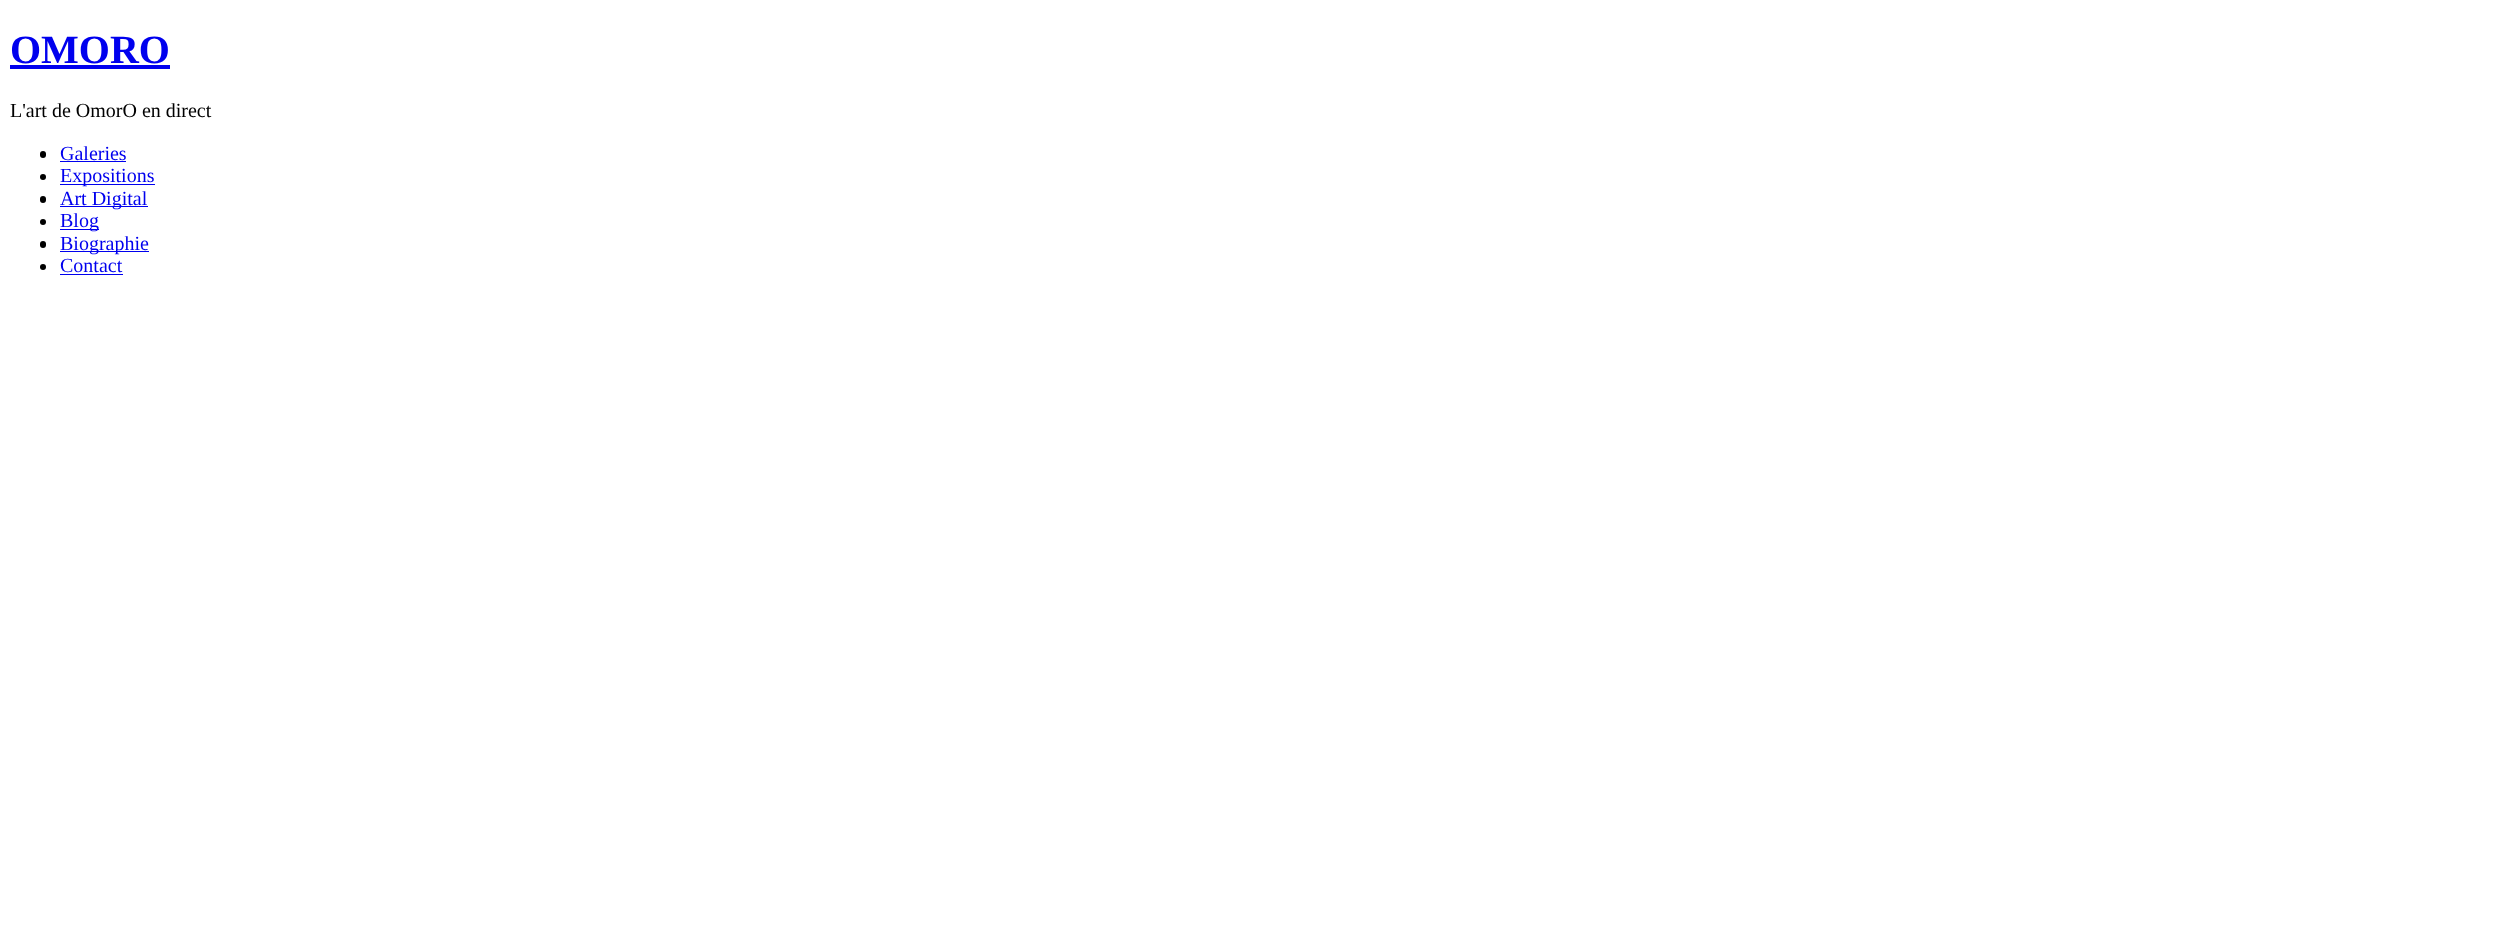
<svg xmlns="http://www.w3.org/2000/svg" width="2498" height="946">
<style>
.a{font:bold 40px Liberation Serif;fill:#00e}
.b{font:20px Liberation Serif;fill:#000}
.c{font:20px Liberation Serif;fill:#00e}
</style>
<rect width="100%" height="100%" fill="#fff"/>
<path fill="#00e" d="M10 65h160v4H10z"/>
<rect fill="#000" x="40" y="151" width="6" height="7" rx="3"/>
<path fill="#00e" d="M60 161h66v1H60z"/>
<circle fill="#000" cx="43" cy="177" r="3"/>
<path fill="#00e" d="M60 184h95v1H60z"/>
<rect fill="#000" x="40" y="196" width="6" height="7" rx="3"/>
<path fill="#00e" d="M60 206h88v1H60z"/>
<circle fill="#000" cx="43" cy="222" r="3"/>
<path fill="#00e" d="M60 229h39v1H60z"/>
<rect fill="#000" x="40" y="241" width="6" height="7" rx="3"/>
<path fill="#00e" d="M60 251h89v1H60z"/>
<circle fill="#000" cx="43" cy="267" r="3"/>
<path fill="#00e" d="M60 274h63v1H60z"/>
<text class="a" x="10" y="63">OMORO</text>
<text class="b" x="10" y="117">L'art de OmorO en direct</text>
<text class="c" x="60" y="160">Galeries</text>
<text class="c" x="60" y="182">Expositions</text>
<text class="c" x="60" y="205">Art Digital</text>
<text class="c" x="60" y="227">Blog</text>
<text class="c" x="60" y="250">Biographie</text>
<text class="c" x="60" y="272">Contact</text>
</svg>
